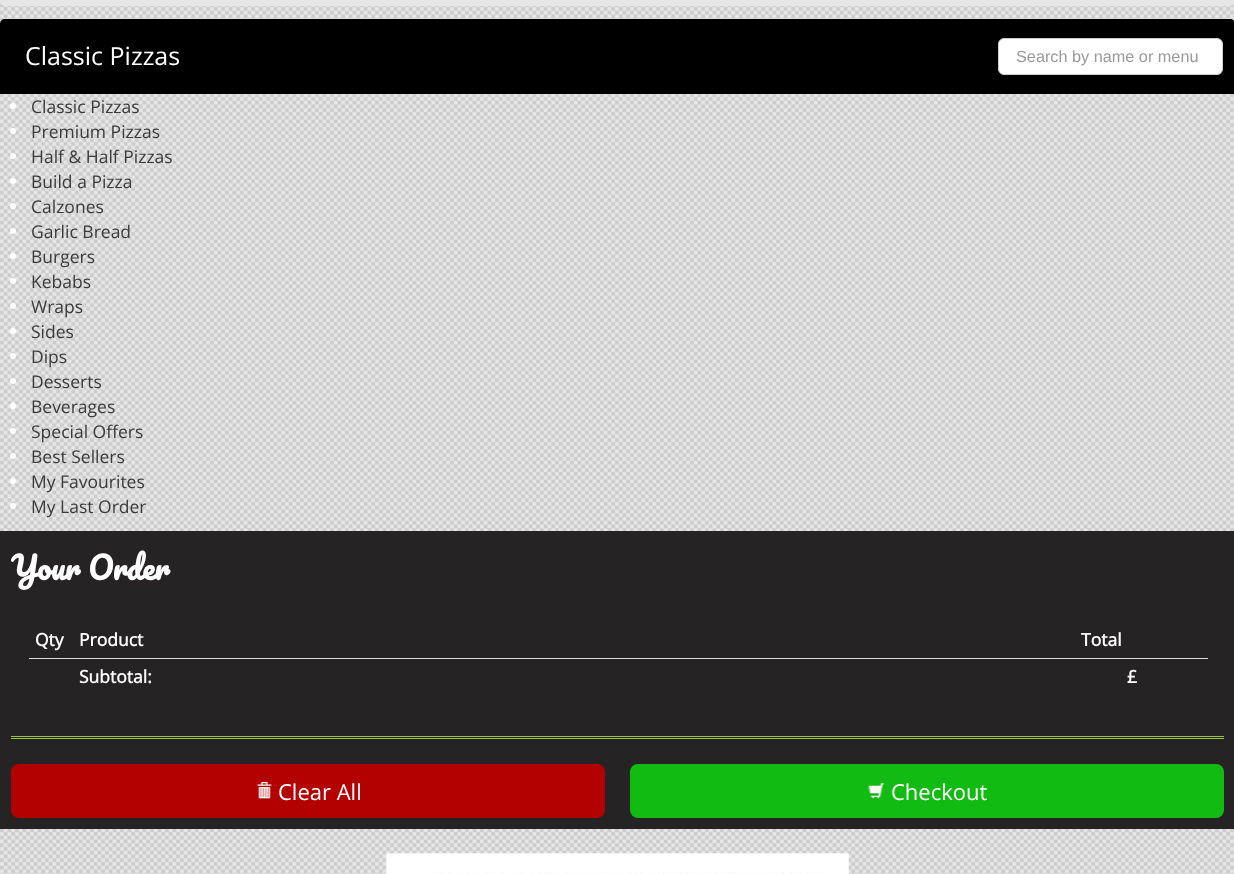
<svg xmlns="http://www.w3.org/2000/svg" width="1234" height="874">
<style>
.a{font:25px Open Sans;fill:#fff}
.b{font:16.25px Liberation Sans;fill:#999}
.c{font:17.5px Open Sans;fill:#3b3b3b}
.d{font:bold 30.5px Pacifico;fill:#fff}
.e{font:bold 17.5px Open Sans;fill:#fff}
.f{font:22px Open Sans;fill:#fff}
</style>
<rect width="100%" height="100%" fill="#e6e6e6"/>
<image href="1.png" x="0" y="1" width="1234" height="873"/>
<rect fill="#e6e6e6" y="-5" width="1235" height="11" rx="5"/>
<path fill="#000" d="M5 19h1225c3 0 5 2 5 5v70h-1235v-70c0-3 2-5 5-5z"/>
<rect fill="#fff" stroke="#ccc" x="998.5" y="38.5" width="224" height="36" rx="5.5"/>
<circle fill="#fff" cx="13" cy="106" r="3"/>
<circle fill="#fff" cx="13" cy="131" r="3"/>
<circle fill="#fff" cx="13" cy="156" r="3"/>
<circle fill="#fff" cx="13" cy="181" r="3"/>
<circle fill="#fff" cx="13" cy="206" r="3"/>
<circle fill="#fff" cx="13" cy="231" r="3"/>
<circle fill="#fff" cx="13" cy="256" r="3"/>
<circle fill="#fff" cx="13" cy="281" r="3"/>
<circle fill="#fff" cx="13" cy="306" r="3"/>
<circle fill="#fff" cx="13" cy="331" r="3"/>
<circle fill="#fff" cx="13" cy="356" r="3"/>
<circle fill="#fff" cx="13" cy="381" r="3"/>
<circle fill="#fff" cx="13" cy="406" r="3"/>
<circle fill="#fff" cx="13" cy="431" r="3"/>
<circle fill="#fff" cx="13" cy="456" r="3"/>
<circle fill="#fff" cx="13" cy="481" r="3"/>
<circle fill="#fff" cx="13" cy="506" r="3"/>
<path fill="#252323" d="M0 531h1234v298H0z"/>
<path fill="#ddd" d="M29 658h1179v1H29z"/>
<path fill="#94c43a" d="M11 736h1213v1H11z"/>
<path fill="#94c43a" d="M11 738h1213v1H11z"/>
<rect fill="#b30000" x="11" y="764" width="594" height="54" rx="8"/>
<image href="2.png" x="256" y="782" width="16" height="18"/>
<rect fill="#12bb12" x="630" y="764" width="594" height="54" rx="8"/>
<image href="3.png" x="868" y="783" width="17" height="17"/>
<image href="4.png" x="385" y="853" width="464" height="21"/>
<text class="a" x="25" y="65">Classic Pizzas</text>
<text class="b" x="1016" y="62">Search by name or menu</text>
<text class="c" x="31" y="113">Classic Pizzas</text>
<text class="c" x="31" y="138">Premium Pizzas</text>
<text class="c" x="31" y="163">Half &amp; Half Pizzas</text>
<text class="c" x="31" y="188">Build a Pizza</text>
<text class="c" x="31" y="213">Calzones</text>
<text class="c" x="31" y="238">Garlic Bread</text>
<text class="c" x="31" y="263">Burgers</text>
<text class="c" x="31" y="288">Kebabs</text>
<text class="c" x="31" y="313">Wraps</text>
<text class="c" x="31" y="338">Sides</text>
<text class="c" x="31" y="363">Dips</text>
<text class="c" x="31" y="388">Desserts</text>
<text class="c" x="31" y="413">Beverages</text>
<text class="c" x="31" y="438">Special Offers</text>
<text class="c" x="31" y="463">Best Sellers</text>
<text class="c" x="31" y="488">My Favourites</text>
<text class="c" x="31" y="513">My Last Order</text>
<text class="d" x="11" y="580">Your Order</text>
<text class="e" x="35" y="646">Qty</text>
<text class="e" x="79" y="646">Product</text>
<text class="e" x="1081" y="646">Total</text>
<text class="e" x="79" y="683">Subtotal:</text>
<text class="e" x="1127" y="683">£</text>
<text class="f" x="278" y="800">Clear All</text>
<text class="f" x="891" y="800">Checkout</text>
</svg>
